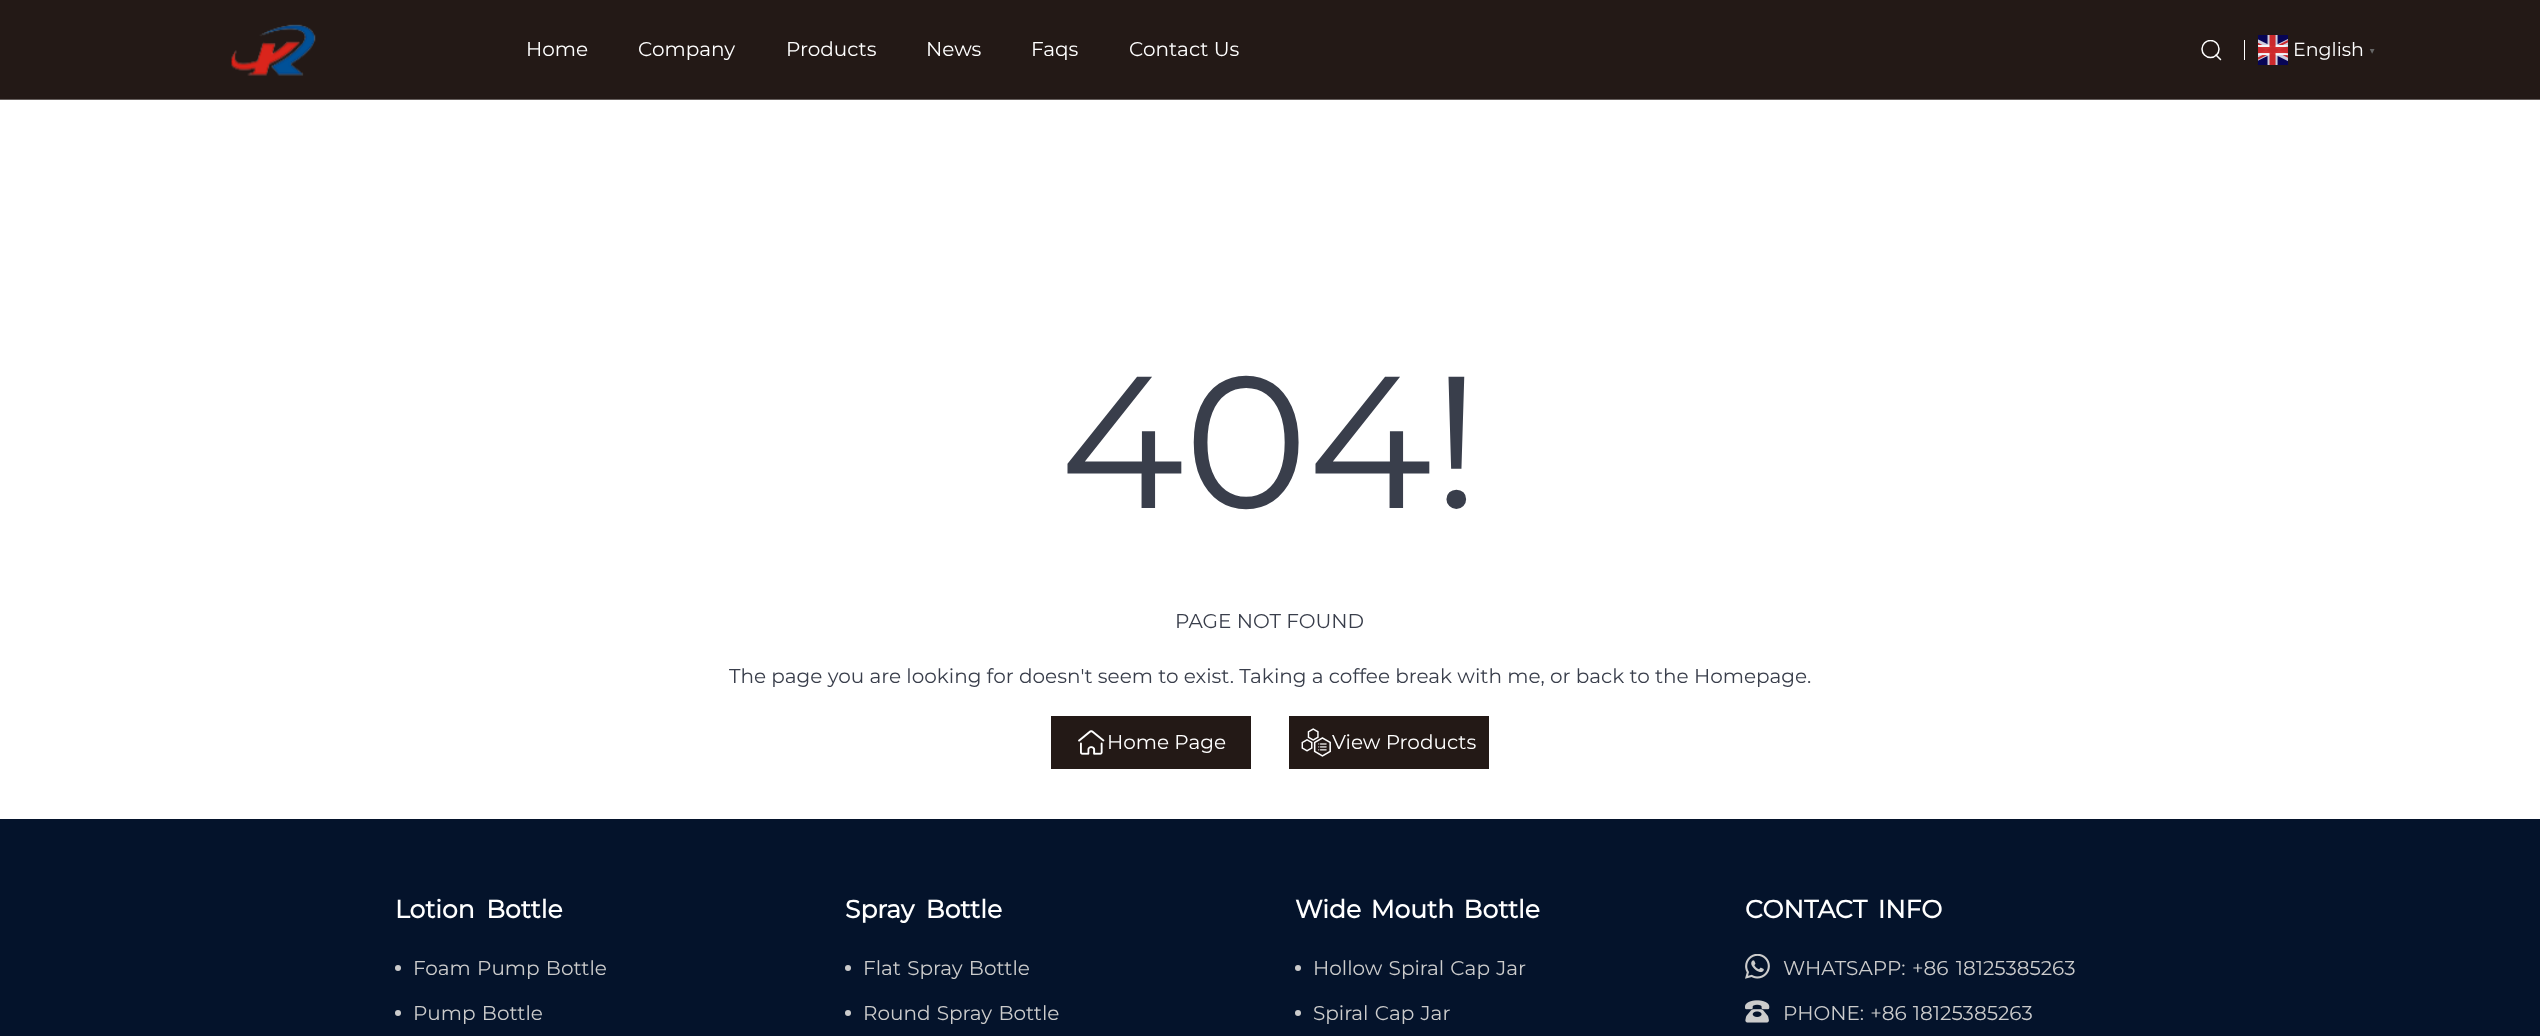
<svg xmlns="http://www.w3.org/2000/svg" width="2540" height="1036">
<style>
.a{font:20px Montserrat;fill:#fff}
.b{font:19px Montserrat;fill:#fff}
.c{font:bold 10px Montserrat;fill:#666}
.d{font:187.5px Montserrat;fill:#393e4b}
.e{font:20px Montserrat;fill:#393e4b}
.f{font:bold 25px Montserrat;fill:#fff}
.g{font:20px Montserrat;fill:#ccc}
</style>
<defs>
<clipPath id="clip1"><path d="M2201 40h20v20H2201z"/></clipPath>
</defs>
<rect width="100%" height="100%" fill="#fff"/>
<path fill="#231916" d="M0 0h2540v99H0z"/>
<path fill="#655e5c" d="M0 99h2540v1H0z"/>
<image href="1.png" x="231" y="24" width="85" height="52"/>
<g clip-path="url(#clip1)">
<circle fill="none" stroke="#fff" stroke-width="1.5" cx="2210.5" cy="49" r="8.5"/>
</g>
<path fill="none" stroke="#fff" stroke-width="1.5" stroke-linecap="round" stroke-linejoin="round" d="M2220.5 59.5l-4.5-4.5"/>
<path fill="#fff" d="M2244 40h1v20H2244z"/>
<image href="2.png" x="2258" y="35" width="30" height="30"/>
<path fill="#231916" d="M1051 716h200v53H1051z"/>
<image href="3.png" x="1078" y="730" width="27" height="25"/>
<path fill="#231916" d="M1289 716h200v53H1289z"/>
<image href="4.png" x="1301" y="728" width="30" height="29"/>
<path fill="#04132b" d="M0 819h2540v217H0z"/>
<circle fill="#ccc" cx="398" cy="968" r="3"/>
<circle fill="#ccc" cx="398" cy="1013" r="3"/>
<circle fill="#ccc" cx="848" cy="968" r="3"/>
<circle fill="#ccc" cx="848" cy="1013" r="3"/>
<circle fill="#ccc" cx="1298" cy="968" r="3"/>
<circle fill="#ccc" cx="1298" cy="1013" r="3"/>
<image href="5.png" x="1745" y="954" width="25" height="25"/>
<image href="6.png" x="1745" y="1000" width="25" height="23"/>
<text class="a" x="526" y="56">Home</text>
<text class="a" x="638" y="56">Company</text>
<text class="a" x="786" y="56">Products</text>
<text class="a" x="926" y="56">News</text>
<text class="a" x="1031" y="56">Faqs</text>
<text class="a" x="1129" y="56">Contact Us</text>
<text class="b" x="2293" y="56">English</text>
<text class="c" x="2369" y="54">▼</text>
<text class="d" x="1060" y="508">404!</text>
<text class="e" x="1175" y="628">PAGE NOT FOUND</text>
<text class="e" x="729" y="683">The page you are looking for doesn't seem to exist. Taking a coffee break with me, or back to the Homepage.</text>
<text class="a" x="1107" y="749">Home Page</text>
<text class="a" x="1332" y="749">View Products</text>
<text class="f" x="395" y="918" word-spacing="5">Lotion Bottle</text>
<text class="g" x="413" y="975" word-spacing="1">Foam Pump Bottle</text>
<text class="g" x="413" y="1020" word-spacing="1">Pump Bottle</text>
<text class="f" x="845" y="918" word-spacing="5">Spray Bottle</text>
<text class="g" x="863" y="975" word-spacing="1">Flat Spray Bottle</text>
<text class="g" x="863" y="1020" word-spacing="1">Round Spray Bottle</text>
<text class="f" x="1295" y="918" word-spacing="3">Wide Mouth Bottle</text>
<text class="g" x="1313" y="975" word-spacing="1">Hollow Spiral Cap Jar</text>
<text class="g" x="1313" y="1020" word-spacing="1">Spiral Cap Jar</text>
<text class="f" x="1745" y="918" word-spacing="4">CONTACT INFO</text>
<text class="g" x="1783" y="975">WHATSAPP:</text>
<text class="g" x="1912" y="975" word-spacing="2">+86 18125385263</text>
<text class="g" x="1783" y="1020" word-spacing="1">PHONE: +86 18125385263</text>
</svg>
